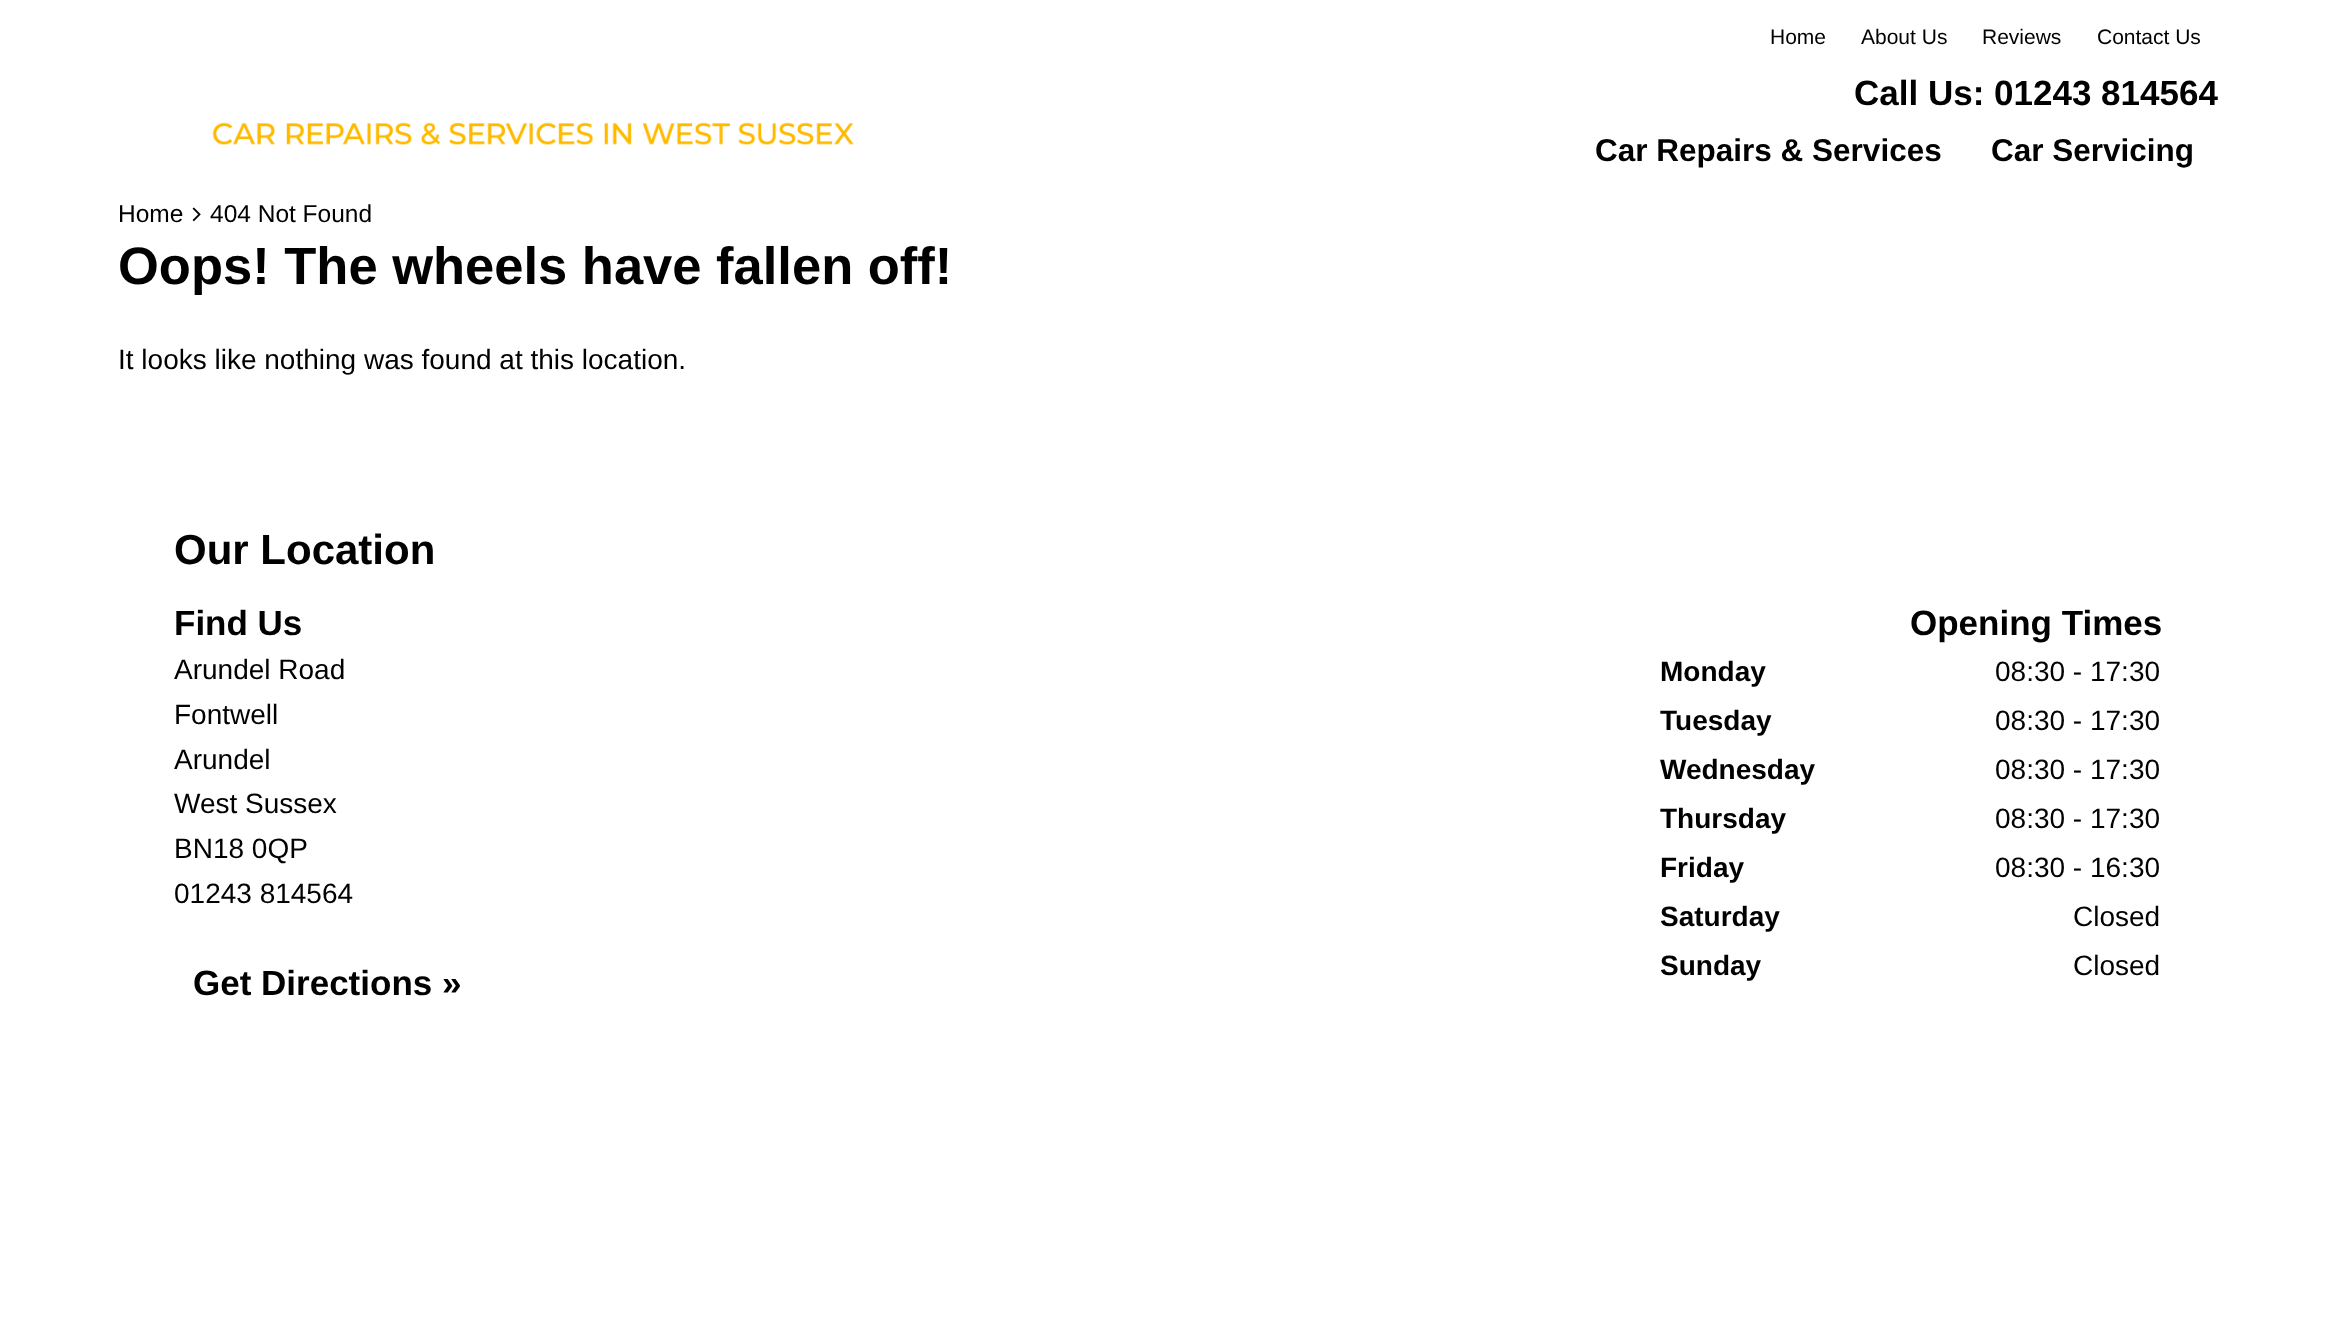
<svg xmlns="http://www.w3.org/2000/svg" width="2335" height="1340">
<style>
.a{font:21px Liberation Sans;fill:#000}
.b{font:bold 35px Liberation Sans;fill:#000}
.c{font:bold 31.5px Liberation Sans;fill:#000}
.d{font:24.5px Liberation Sans;fill:#000}
.e{font:bold 52.5px Liberation Sans;fill:#000}
.f{font:28px Liberation Sans;fill:#000}
.g{font:bold 42px Liberation Sans;fill:#000}
.h{font:bold 28px Liberation Sans;fill:#000}
</style>
<rect width="100%" height="100%" fill="#fff"/>
<image href="1.png" x="212" y="122" width="642" height="23"/>
<image href="2.png" x="192" y="207" width="9" height="15"/>
<text class="a" x="1770" y="44">Home</text>
<text class="a" x="1861" y="44">About Us</text>
<text class="a" x="1982" y="44">Reviews</text>
<text class="a" x="2097" y="44">Contact Us</text>
<text class="b" x="1854" y="105">Call Us: 01243 814564</text>
<text class="c" x="1595" y="161">Car Repairs &amp; Services</text>
<text class="c" x="1991" y="161">Car Servicing</text>
<text class="d" x="118" y="222">Home</text>
<text class="d" x="210" y="222">404 Not Found</text>
<text class="e" x="118" y="284">Oops! The wheels have fallen off!</text>
<text class="f" x="118" y="369">It looks like nothing was found at this location.</text>
<text class="g" x="174" y="564">Our Location</text>
<text class="b" x="174" y="635">Find Us</text>
<text class="f" x="174" y="679">Arundel Road</text>
<text class="f" x="174" y="724">Fontwell</text>
<text class="f" x="174" y="769">Arundel</text>
<text class="f" x="174" y="813">West Sussex</text>
<text class="f" x="174" y="858">BN18 0QP</text>
<text class="f" x="174" y="903">01243 814564</text>
<text class="b" x="193" y="995">Get Directions »</text>
<text class="b" x="1910" y="635">Opening Times</text>
<text class="h" x="1660" y="681">Monday</text>
<text class="f" x="1995" y="681">08:30 - 17:30</text>
<text class="h" x="1660" y="730">Tuesday</text>
<text class="f" x="1995" y="730">08:30 - 17:30</text>
<text class="h" x="1660" y="779">Wednesday</text>
<text class="f" x="1995" y="779">08:30 - 17:30</text>
<text class="h" x="1660" y="828">Thursday</text>
<text class="f" x="1995" y="828">08:30 - 17:30</text>
<text class="h" x="1660" y="877">Friday</text>
<text class="f" x="1995" y="877">08:30 - 16:30</text>
<text class="h" x="1660" y="926">Saturday</text>
<text class="f" x="2073" y="926">Closed</text>
<text class="h" x="1660" y="975">Sunday</text>
<text class="f" x="2073" y="975">Closed</text>
</svg>
